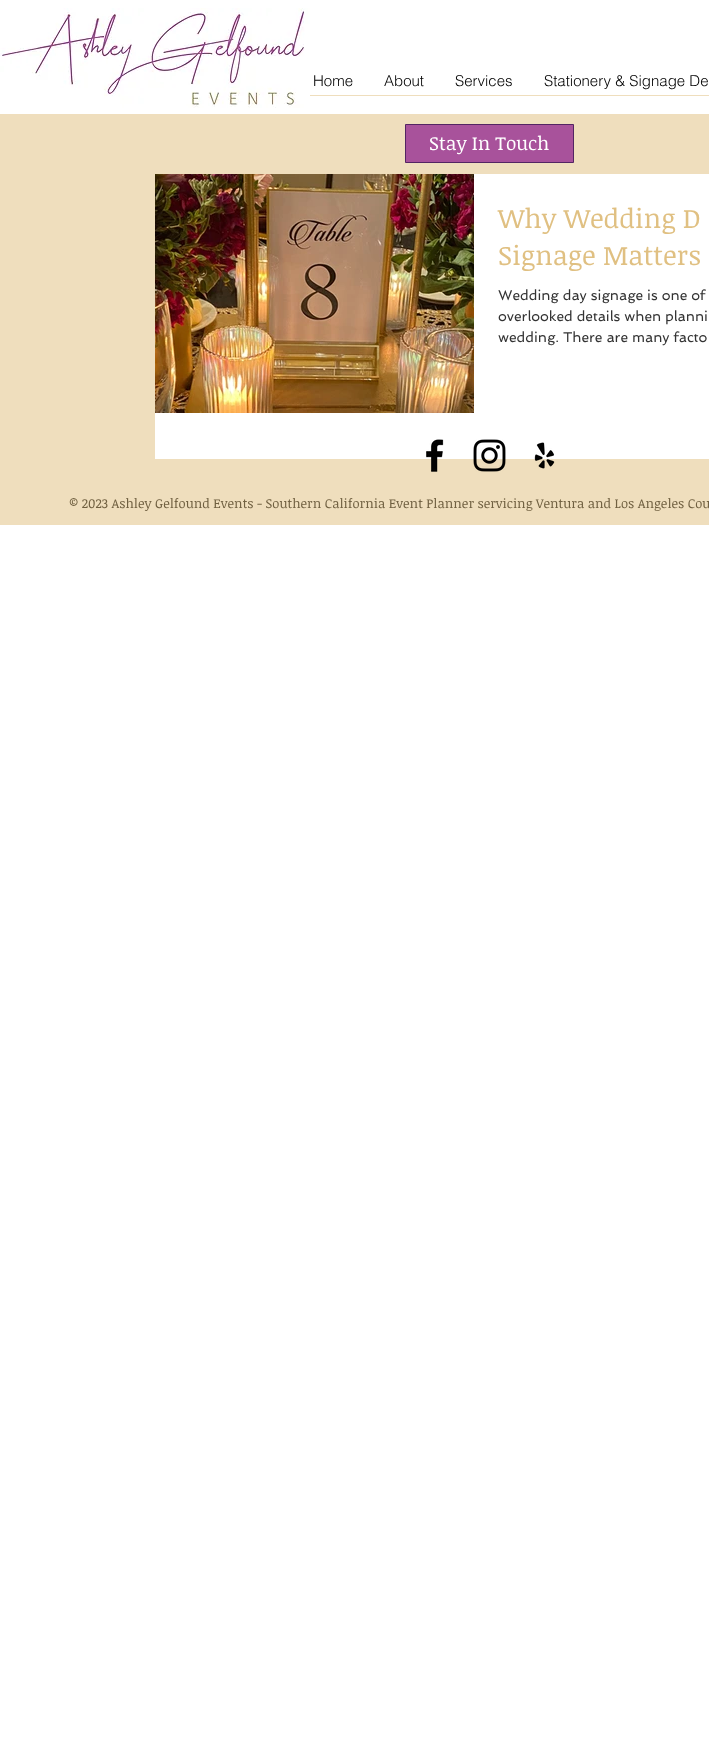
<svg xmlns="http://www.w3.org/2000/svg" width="709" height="1739">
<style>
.a{font:300 15px helvetica;fill:#000}
.b{font:19px Noticia Text;fill:#fff}
.c{font:27px Noticia Text;fill:#e0c082}
.d{font:14px Spinnaker;fill:#333}
.e{font:13px Noticia Text;fill:#706041}
</style>
<rect width="100%" height="100%" fill="#fff"/>
<image href="1.png" x="0" y="8" width="310" height="100"/>
<path fill="#efdebd" d="M310 95h399v1H310z"/>
<path fill="#efdebd" d="M0 114h709v411H0z"/>
<path fill="#a8529b" stroke="#532563" d="M405.5 124.5h168v38H405.5z"/>
<path fill="#fff" d="M155 174h554v285H155z"/>
<image href="2.png" x="155" y="174" width="319" height="239"/>
<image href="3.png" x="426" y="439" width="18" height="33"/>
<image href="4.png" x="473" y="439" width="33" height="33"/>
<image href="5.png" x="534" y="442" width="21" height="27"/>
<text class="a" x="313" y="86">Home</text>
<text class="a" x="384" y="86">About</text>
<text class="a" x="455" y="86">Services</text>
<text class="a" x="544" y="86">Stationery &amp; Signage De</text>
<text class="b" x="429" y="150">Stay In Touch</text>
<text class="c" x="498" y="228">Why Wedding D</text>
<text class="c" x="498" y="265">Signage Matters</text>
<text class="d" x="498" y="300">Wedding day signage is one of</text>
<text class="d" x="498" y="321">overlooked details when planni</text>
<text class="d" x="498" y="342">wedding. There are many facto</text>
<text class="e" x="69" y="508">© 2023 Ashley Gelfound Events - Southern California Event Planner servicing Ventura and Los Angeles Cou</text>
</svg>
